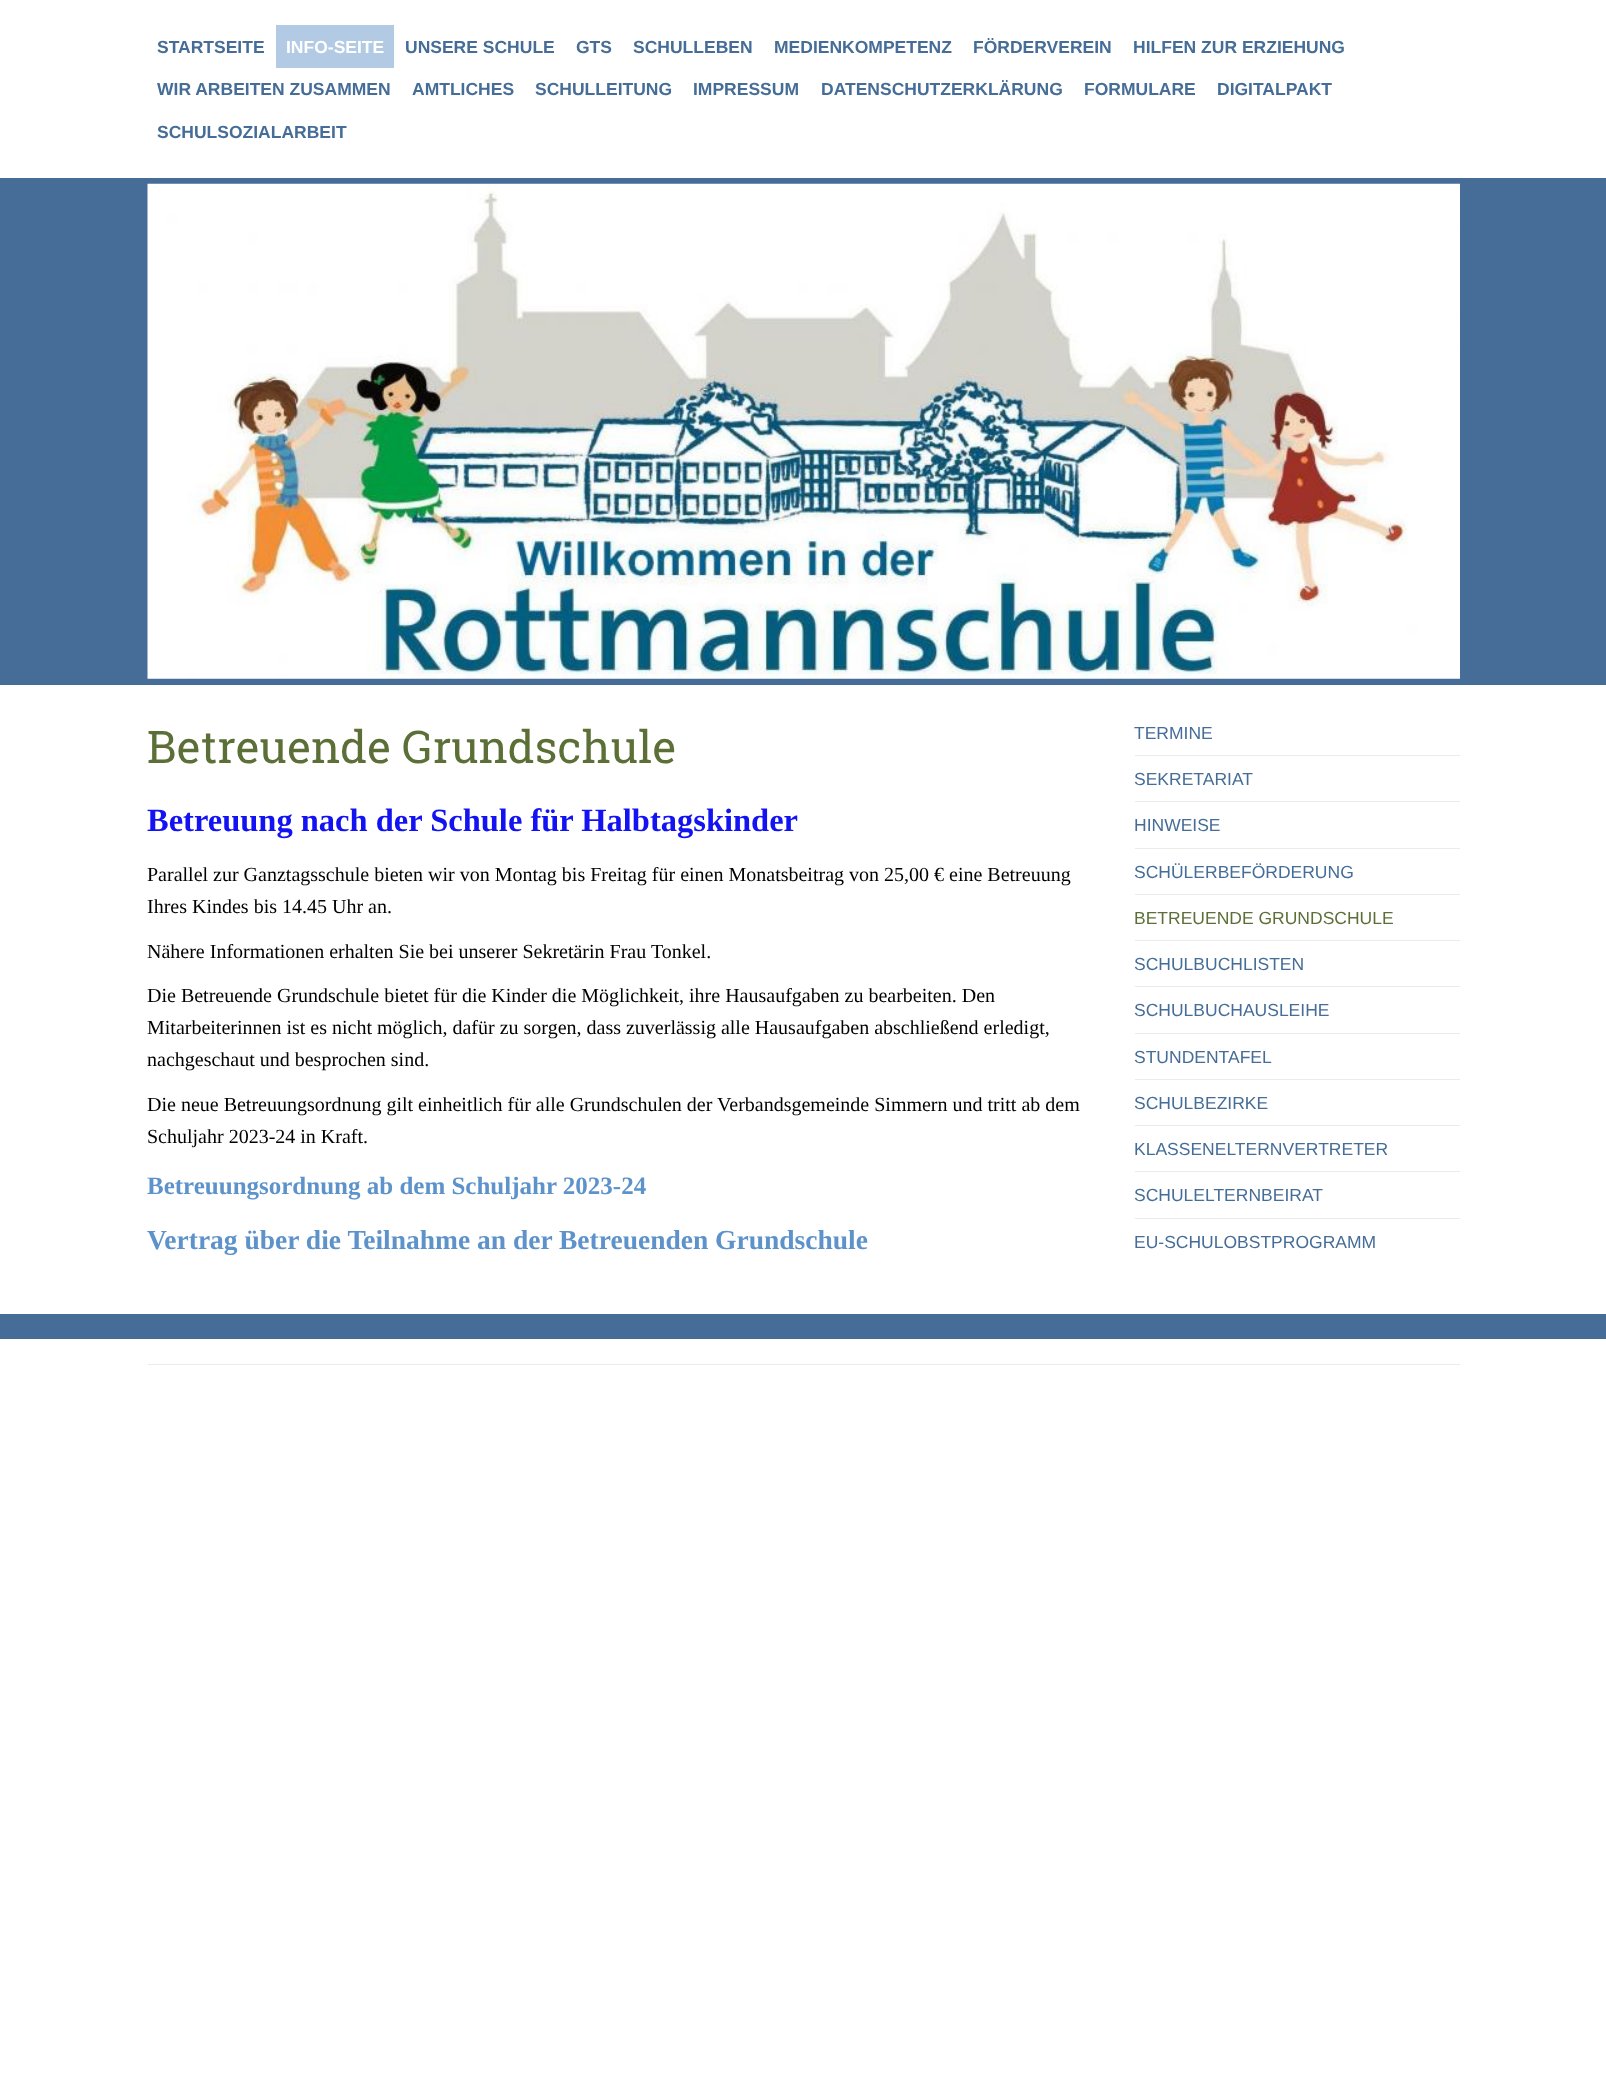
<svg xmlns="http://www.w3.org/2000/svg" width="1606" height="2075">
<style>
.a{font:bold 17.5px Liberation Sans;fill:#456d97}
.b{font:bold 17.5px Liberation Sans;fill:#fff}
.c{font:45px Roboto Slab;fill:#5b6f37}
.d{font:bold 32.5px Liberation Serif;fill:#1212f3}
.e{font:20px Liberation Serif;fill:#000}
.f{font:bold 25px Liberation Serif;fill:#5d93ca}
.g{font:bold 27.5px Liberation Serif;fill:#5d93ca}
.h{font:17.5px Liberation Sans;fill:#456d97}
.i{font:17.5px Liberation Sans;fill:#5b6f37}
</style>
<rect width="100%" height="100%" fill="#fff"/>
<path fill="#b2cae3" d="M276 25h118v43H276z"/>
<path fill="#456d97" d="M0 178h1606v507H0z"/>
<image href="1.png" x="147" y="183" width="1313" height="496"/>
<path fill="#ebebeb" d="M1135 755h325v1H1135z"/>
<path fill="#ebebeb" d="M1135 801h325v1H1135z"/>
<path fill="#ebebeb" d="M1135 848h325v1H1135z"/>
<path fill="#ebebeb" d="M1135 894h325v1H1135z"/>
<path fill="#ebebeb" d="M1135 940h325v1H1135z"/>
<path fill="#ebebeb" d="M1135 986h325v1H1135z"/>
<path fill="#ebebeb" d="M1135 1033h325v1H1135z"/>
<path fill="#ebebeb" d="M1135 1079h325v1H1135z"/>
<path fill="#ebebeb" d="M1135 1125h325v1H1135z"/>
<path fill="#ebebeb" d="M1135 1171h325v1H1135z"/>
<path fill="#ebebeb" d="M1135 1218h325v1H1135z"/>
<path fill="#456d97" d="M0 1314h1606v25H0z"/>
<path fill="#ebebeb" d="M148 1364h1312v1H148z"/>
<text class="a" x="157" y="53">STARTSEITE</text>
<text class="b" x="286" y="53">INFO-SEITE</text>
<text class="a" x="405" y="53">UNSERE SCHULE</text>
<text class="a" x="576" y="53">GTS</text>
<text class="a" x="633" y="53">SCHULLEBEN</text>
<text class="a" x="774" y="53">MEDIENKOMPETENZ</text>
<text class="a" x="973" y="53">FÖRDERVEREIN</text>
<text class="a" x="1133" y="53">HILFEN ZUR ERZIEHUNG</text>
<text class="a" x="157" y="95">WIR ARBEITEN ZUSAMMEN</text>
<text class="a" x="412" y="95">AMTLICHES</text>
<text class="a" x="535" y="95">SCHULLEITUNG</text>
<text class="a" x="693" y="95">IMPRESSUM</text>
<text class="a" x="821" y="95">DATENSCHUTZERKLÄRUNG</text>
<text class="a" x="1084" y="95">FORMULARE</text>
<text class="a" x="1217" y="95">DIGITALPAKT</text>
<text class="a" x="157" y="138">SCHULSOZIALARBEIT</text>
<text class="c" x="147" y="763">Betreuende Grundschule</text>
<text class="d" x="147" y="831">Betreuung nach der Schule für Halbtagskinder</text>
<text class="e" x="147" y="881">Parallel zur Ganztagsschule bieten wir von Montag bis Freitag für einen Monatsbeitrag von 25,00 € eine Betreuung</text>
<text class="e" x="147" y="913">Ihres Kindes bis 14.45 Uhr an.</text>
<text class="e" x="147" y="958">Nähere Informationen erhalten Sie bei unserer Sekretärin Frau Tonkel.</text>
<text class="e" x="147" y="1002">Die Betreuende Grundschule bietet für die Kinder die Möglichkeit, ihre Hausaufgaben zu bearbeiten. Den</text>
<text class="e" x="147" y="1034">Mitarbeiterinnen ist es nicht möglich, dafür zu sorgen, dass zuverlässig alle Hausaufgaben abschließend erledigt,</text>
<text class="e" x="147" y="1066">nachgeschaut und besprochen sind.</text>
<text class="e" x="147" y="1111">Die neue Betreuungsordnung gilt einheitlich für alle Grundschulen der Verbandsgemeinde Simmern und tritt ab dem</text>
<text class="e" x="147" y="1143">Schuljahr 2023-24 in Kraft.</text>
<text class="f" x="147" y="1194">Betreuungsordnung ab dem Schuljahr 2023-24</text>
<text class="g" x="147" y="1249">Vertrag über die Teilnahme an der Betreuenden Grundschule</text>
<text class="h" x="1134" y="739">TERMINE</text>
<text class="h" x="1134" y="785">SEKRETARIAT</text>
<text class="h" x="1134" y="831">HINWEISE</text>
<text class="h" x="1134" y="878">SCHÜLERBEFÖRDERUNG</text>
<text class="i" x="1134" y="924">BETREUENDE GRUNDSCHULE</text>
<text class="h" x="1134" y="970">SCHULBUCHLISTEN</text>
<text class="h" x="1134" y="1016">SCHULBUCHAUSLEIHE</text>
<text class="h" x="1134" y="1063">STUNDENTAFEL</text>
<text class="h" x="1134" y="1109">SCHULBEZIRKE</text>
<text class="h" x="1134" y="1155">KLASSENELTERNVERTRETER</text>
<text class="h" x="1134" y="1201">SCHULELTERNBEIRAT</text>
<text class="h" x="1134" y="1248">EU-SCHULOBSTPROGRAMM</text>
</svg>
